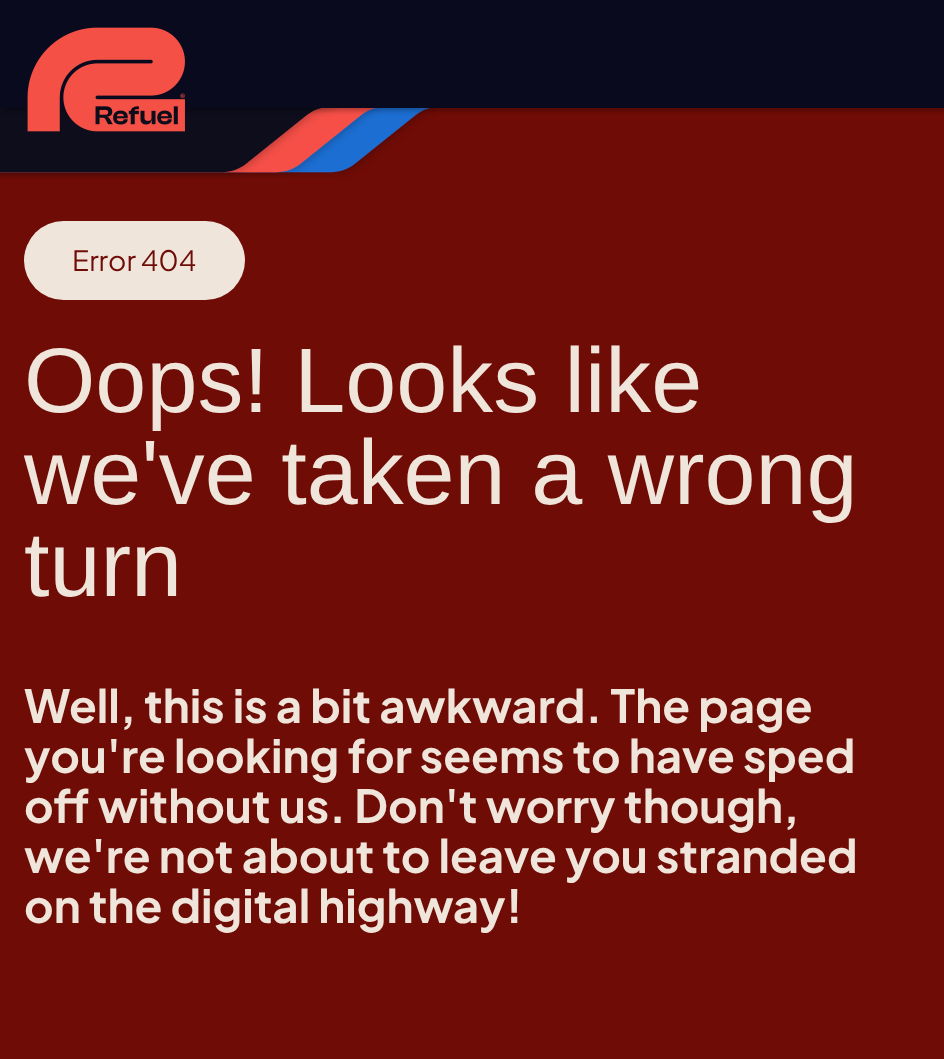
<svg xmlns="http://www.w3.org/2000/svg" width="944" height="1059">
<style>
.a{font:28px Plus Jakarta Sans;fill:#700c06}
.b{font:91.75px Liberation Sans;fill:#efe5db}
.c{font:bold 45.5px Plus Jakarta Sans;fill:#efe5db}
</style>
<rect width="100%" height="100%" fill="#700c06"/>
<image href="2.png" x="0" y="108" width="435" height="71"/>
<path fill="#00000040" filter="blur(2px)" d="M3 3h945v108H3z"/>
<path fill="#0a0a1e" d="M0 0h944v108H0z"/>
<image href="1.png" x="27" y="27" width="158" height="105"/>
<rect fill="#efe5db" x="24" y="221" width="221" height="79" rx="39.5"/>
<text class="a" x="72" y="271">Error 404</text>
<text class="b" x="24" y="412">Oops! Looks like</text>
<text class="b" x="24" y="504">we've taken a wrong</text>
<text class="b" x="24" y="596">turn</text>
<text class="c" x="24" y="723">Well, this is a bit awkward. The page</text>
<text class="c" x="24" y="773">you're looking for seems to have sped</text>
<text class="c" x="24" y="823">off without us. Don't worry though,</text>
<text class="c" x="24" y="873">we're not about to leave you stranded</text>
<text class="c" x="24" y="923">on the digital highway!</text>
</svg>
